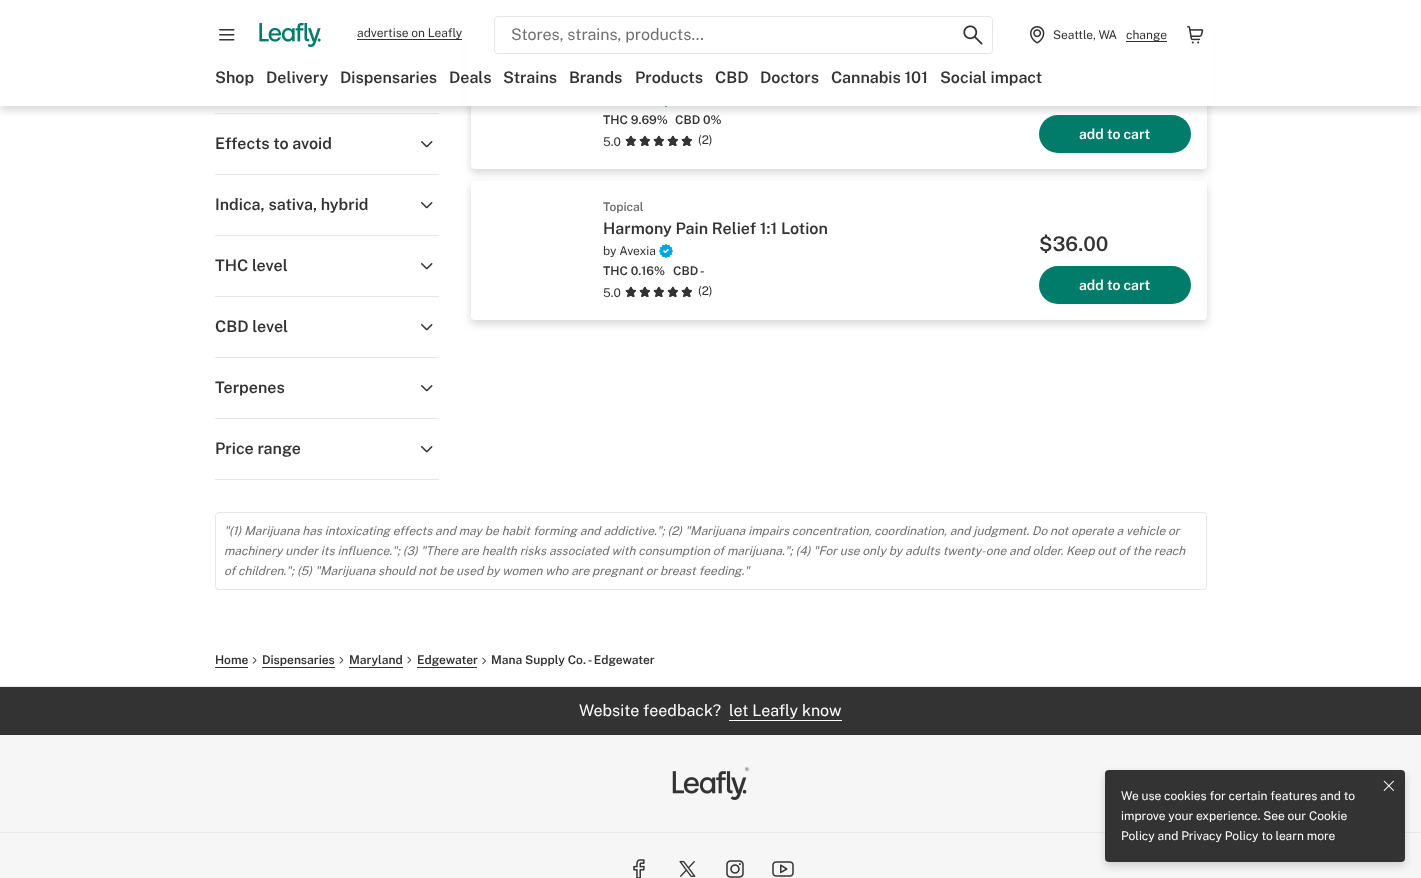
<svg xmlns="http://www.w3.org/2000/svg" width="1421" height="878">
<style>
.a{font:12px Public Sans;fill:#333}
.b{font:16px Public Sans;fill:#707070}
.c{font:600 16px Public Sans;fill:#333}
.d{font:600 12px Public Sans;fill:#333}
.e{font:600 14px Public Sans;fill:#fff}
.f{font:600 12px Public Sans;fill:#707070}
.g{font:600 20px Public Sans;fill:#333}
.h{font:italic 12px Public Sans;fill:#707070}
.i{font:16px Public Sans;fill:#fff}
.j{font:12px Public Sans;fill:#fff}
</style>
<defs>
<clipPath id="clip1"><path d="M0 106h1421v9H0z"/></clipPath>
</defs>
<rect width="100%" height="100%" fill="#fff"/>
<rect fill="#00000029" filter="blur(4px)" x="471" y="34" width="736" height="139" rx="4"/>
<rect fill="#fff" x="471" y="30" width="736" height="139" rx="4"/>
<path fill="#fff" d="M465 28h748v78H465z"/>
<path fill="#e7e7e7" d="M215 113h224v1H215z"/>
<image href="7.png" x="662" y="106" width="8" height="1"/>
<rect fill="#017c6b" x="1039" y="115" width="152" height="38" rx="19"/>
<g clip-path="url(#clip1)">
<path fill="#00000029" filter="blur(4px)" d="M0 4h1421v106H0z"/>
</g>
<image href="1.png" x="219" y="29" width="16" height="12"/>
<image href="2.png" x="259" y="23" width="62" height="24"/>
<path fill="#333" d="M357 39h105v1H357z"/>
<rect fill="none" stroke="#e7e7e7" x="494.5" y="16.5" width="498" height="37" rx="3.5"/>
<image href="3.png" x="963" y="25" width="20" height="20"/>
<image href="4.png" x="1030" y="26" width="15" height="18"/>
<path fill="#333" d="M1126 41h41v1H1126z"/>
<image href="5.png" x="1187" y="26" width="17" height="18"/>
<path fill="#e7e7e7" d="M215 174h224v1H215z"/>
<image href="6.png" x="421" y="141" width="12" height="7"/>
<path fill="#e7e7e7" d="M215 235h224v1H215z"/>
<image href="6.png" x="421" y="202" width="12" height="7"/>
<path fill="#e7e7e7" d="M215 296h224v1H215z"/>
<image href="6.png" x="421" y="263" width="12" height="7"/>
<path fill="#e7e7e7" d="M215 357h224v1H215z"/>
<image href="6.png" x="421" y="324" width="12" height="7"/>
<path fill="#e7e7e7" d="M215 418h224v1H215z"/>
<image href="6.png" x="421" y="385" width="12" height="7"/>
<path fill="#e7e7e7" d="M215 479h224v1H215z"/>
<image href="6.png" x="421" y="446" width="12" height="7"/>
<image href="8.png" x="625" y="135" width="67" height="11"/>
<image href="9.png" x="625" y="135" width="67" height="11"/>
<rect fill="#00000029" filter="blur(4px)" x="471" y="185" width="736" height="139" rx="4"/>
<rect fill="#fff" x="471" y="181" width="736" height="139" rx="4"/>
<image href="10.png" x="659" y="244" width="14" height="14"/>
<image href="8.png" x="625" y="286" width="67" height="11"/>
<image href="9.png" x="625" y="286" width="67" height="11"/>
<rect fill="#017c6b" x="1039" y="266" width="152" height="38" rx="19"/>
<rect fill="none" stroke="#e7e7e7" x="215.5" y="512.5" width="991" height="77" rx="3.5"/>
<path fill="#333" d="M215 667h33v1H215z"/>
<image href="11.png" x="252" y="657" width="5" height="7"/>
<path fill="#333" d="M262 667h73v1H262z"/>
<image href="12.png" x="339" y="656" width="5" height="8"/>
<path fill="#333" d="M349 667h54v1H349z"/>
<image href="13.png" x="407" y="656" width="4" height="8"/>
<path fill="#333" d="M417 667h60v1H417z"/>
<image href="14.png" x="482" y="657" width="4" height="8"/>
<path fill="#f6f6f6" d="M0 735h1421v143H0z"/>
<path fill="#e7e7e7" d="M0 686h1421v1H0z"/>
<path fill="#333" d="M0 687h1421v48H0z"/>
<path fill="#fff" d="M729 720h113v1H729z"/>
<image href="15.png" x="672" y="767" width="78" height="33"/>
<path fill="#e7e7e7" d="M0 832h1421v1H0z"/>
<image href="16.png" x="633" y="859" width="12" height="19"/>
<image href="17.png" x="679" y="860" width="17" height="17"/>
<image href="18.png" x="726" y="860" width="18" height="18"/>
<image href="19.png" x="772" y="861" width="22" height="16"/>
<rect fill="#00000029" filter="blur(4px)" x="1105" y="774" width="300" height="92" rx="4"/>
<rect fill="#333" x="1105" y="770" width="300" height="92" rx="4"/>
<image href="20.png" x="1383" y="780" width="11" height="11"/>
<text class="a" x="357" y="37">advertise on Leafly</text>
<text class="b" x="511" y="40">Stores, strains, products...</text>
<text class="a" x="1053" y="39">Seattle, WA</text>
<text class="a" x="1126" y="39">change</text>
<text class="c" x="215" y="83">Shop</text>
<text class="c" x="266" y="83">Delivery</text>
<text class="c" x="340" y="83">Dispensaries</text>
<text class="c" x="449" y="83">Deals</text>
<text class="c" x="503" y="83">Strains</text>
<text class="c" x="569" y="83">Brands</text>
<text class="c" x="635" y="83">Products</text>
<text class="c" x="715" y="83">CBD</text>
<text class="c" x="760" y="83">Doctors</text>
<text class="c" x="831" y="83">Cannabis 101</text>
<text class="c" x="940" y="83">Social impact</text>
<text class="c" x="215" y="149">Effects to avoid</text>
<text class="c" x="215" y="210">Indica, sativa, hybrid</text>
<text class="c" x="215" y="271">THC level</text>
<text class="c" x="215" y="332">CBD level</text>
<text class="c" x="215" y="393">Terpenes</text>
<text class="c" x="215" y="454">Price range</text>
<text class="d" x="603" y="124">THC 9.69%</text>
<text class="d" x="675" y="124">CBD 0%</text>
<text class="a" x="603" y="146">5.0</text>
<text class="a" x="698" y="144">(2)</text>
<text class="e" x="1079" y="139">add to cart</text>
<text class="f" x="603" y="211">Topical</text>
<text class="c" x="603" y="234">Harmony Pain Relief 1:1 Lotion</text>
<text class="a" x="603" y="255">by Avexia</text>
<text class="d" x="603" y="275">THC 0.16%</text>
<text class="d" x="673" y="275">CBD -</text>
<text class="a" x="603" y="297">5.0</text>
<text class="a" x="698" y="295">(2)</text>
<text class="g" x="1039" y="251">$36.00</text>
<text class="e" x="1079" y="290">add to cart</text>
<text class="h" x="224" y="535">"(1) Marijuana has intoxicating effects and may be habit forming and addictive."; (2) "Marijuana impairs concentration, coordination, and judgment. Do not operate a vehicle or</text>
<text class="h" x="224" y="555">machinery under its influence."; (3) "There are health risks associated with consumption of marijuana."; (4) "For use only by adults twenty-one and older. Keep out of the reach</text>
<text class="h" x="224" y="575">of children."; (5) "Marijuana should not be used by women who are pregnant or breast feeding."</text>
<text class="d" x="215" y="664">Home</text>
<text class="d" x="262" y="664">Dispensaries</text>
<text class="d" x="349" y="664">Maryland</text>
<text class="d" x="417" y="664">Edgewater</text>
<text class="d" x="491" y="664">Mana Supply Co. - Edgewater</text>
<text class="i" x="579" y="716">Website feedback?</text>
<text class="i" x="729" y="716">let Leafly know</text>
<text class="j" x="1121" y="800">We use cookies for certain features and to</text>
<text class="j" x="1121" y="820">improve your experience. See our Cookie</text>
<text class="j" x="1121" y="840">Policy and Privacy Policy to learn more</text>
</svg>
